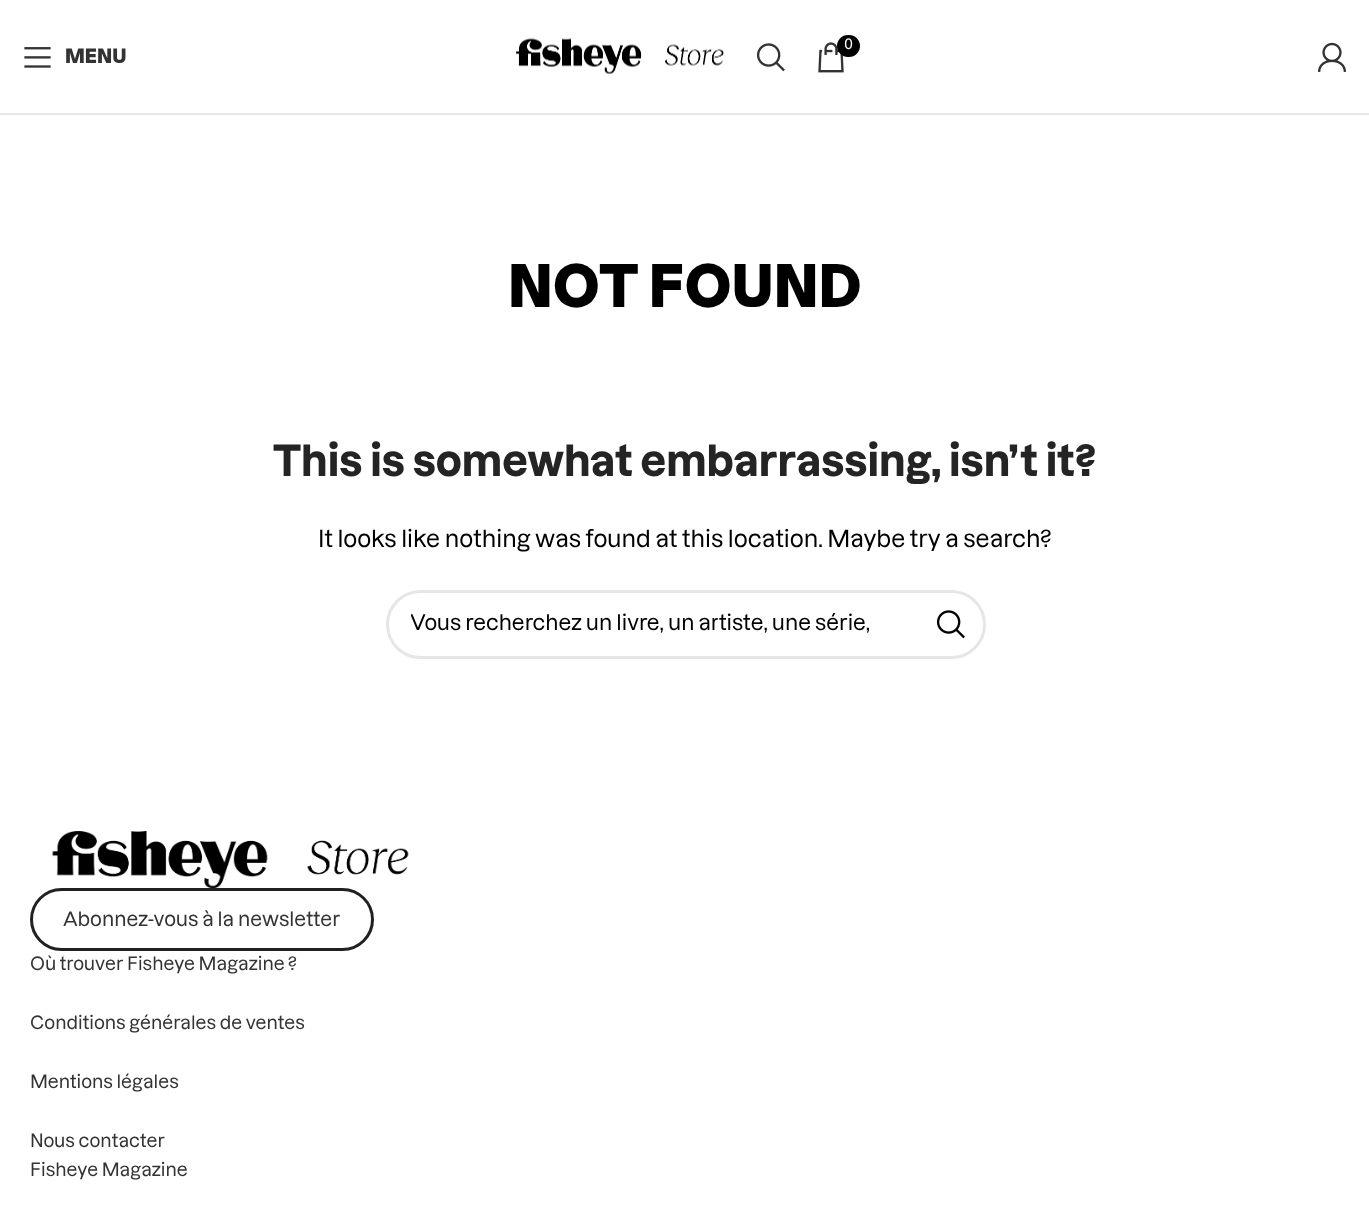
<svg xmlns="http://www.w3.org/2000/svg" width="1369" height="1223">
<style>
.a{font:900 19.5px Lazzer;fill:#333}
.b{font:500 14px Lazzer;fill:#fff}
.c{font:900 57.5px Lazzer;fill:#000}
.d{font:bold 42px Lazzer;fill:#242424}
.e{font:500 23.1px Lazzer;fill:#000}
.f{font:500 21px Lazzer;fill:#000}
.g{font:500 19.5px Lazzer;fill:#333}
.h{font:500 18px Lazzer;fill:#333}
</style>
<defs>
<clipPath id="clip1"><path d="M411 612h458v26H411z"/></clipPath>
</defs>
<rect width="100%" height="100%" fill="#fff"/>
<path fill="#e6e6e6" d="M0 113h1369v2H0z"/>
<image href="1.png" x="24" y="47" width="27" height="21"/>
<image href="2.png" x="516" y="38" width="208" height="36"/>
<image href="3.png" x="757" y="43" width="28" height="29"/>
<image href="4.png" x="818" y="42" width="26" height="31"/>
<rect fill="#000" x="837" y="35" width="23" height="22" rx="11"/>
<image href="5.png" x="1318" y="42" width="28" height="30"/>
<rect fill="none" stroke="#e6e6e6" stroke-width="3" x="387.5" y="591.5" width="597" height="66" rx="33"/>
<image href="6.png" x="937" y="610" width="28" height="29"/>
<image href="7.png" x="52" y="831" width="357" height="57"/>
<rect fill="none" stroke="#212121" stroke-width="3" x="31.5" y="889.5" width="341" height="60" rx="30"/>
<text class="a" x="65" y="63">MENU</text>
<text class="b" x="844" y="49">0</text>
<text class="c" x="508" y="307">NOT FOUND</text>
<text class="d" x="273" y="476">This is somewhat embarrassing, isn’t it?</text>
<text class="e" x="318" y="547">It looks like nothing was found at this location. Maybe try a search?</text>
<g clip-path="url(#clip1)">
<text class="f" x="410" y="630">Vous recherchez un livre, un artiste, une série,</text>
</g>
<text class="g" x="63" y="926">Abonnez-vous à la newsletter</text>
<text class="h" x="30" y="970">Où trouver Fisheye Magazine ?</text>
<text class="h" x="30" y="1029">Conditions générales de ventes</text>
<text class="h" x="30" y="1088">Mentions légales</text>
<text class="h" x="30" y="1147">Nous contacter</text>
<text class="h" x="30" y="1176">Fisheye Magazine</text>
</svg>
